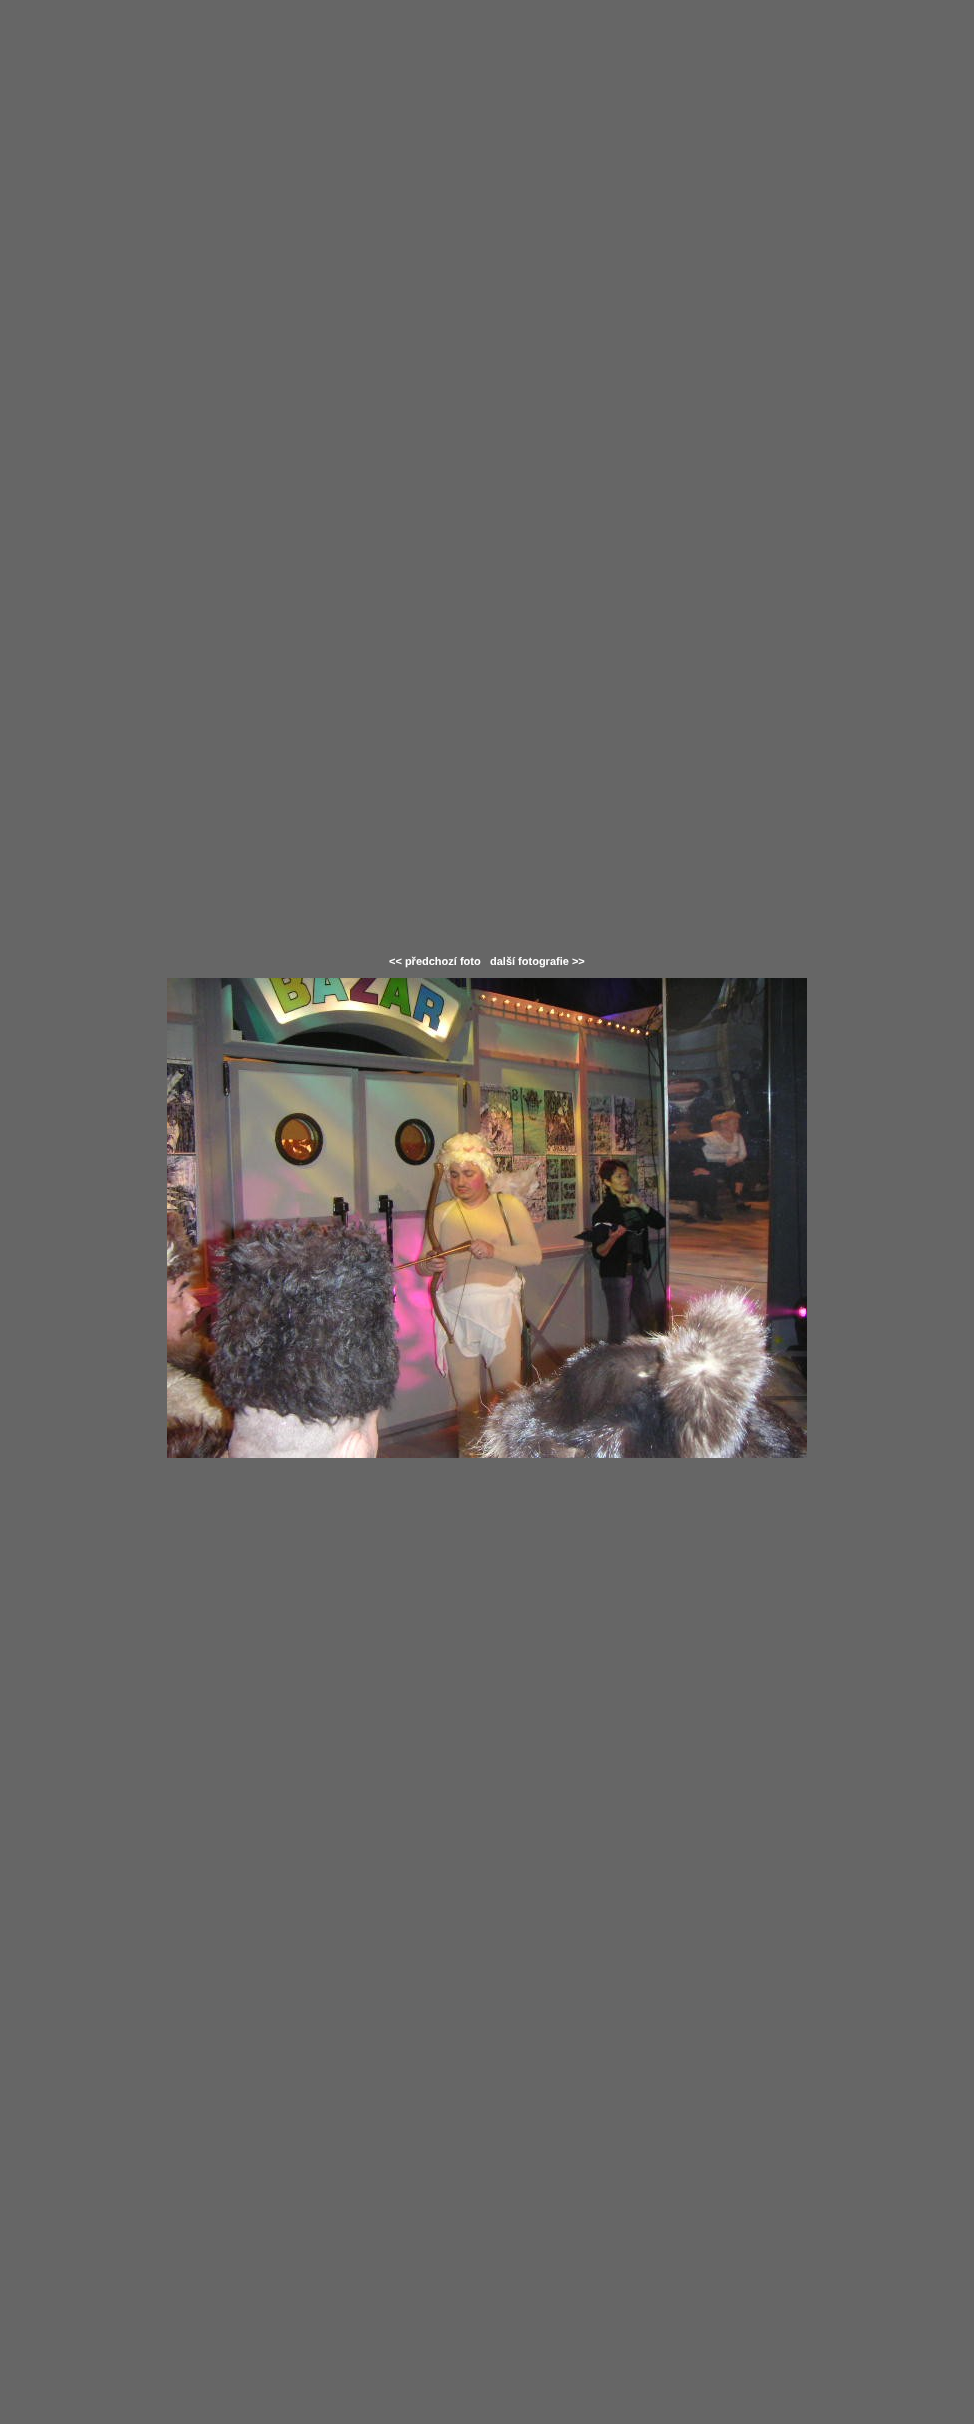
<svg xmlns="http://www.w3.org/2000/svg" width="974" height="2424">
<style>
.a{font:bold 11px Liberation Sans;fill:#fff}
</style>
<rect width="100%" height="100%" fill="#666"/>
<image href="1.png" x="167" y="978" width="640" height="480"/>
<text class="a" x="389" y="965">&lt;&lt; předchozí foto</text>
<text class="a" x="490" y="965">další fotografie &gt;&gt;</text>
</svg>
